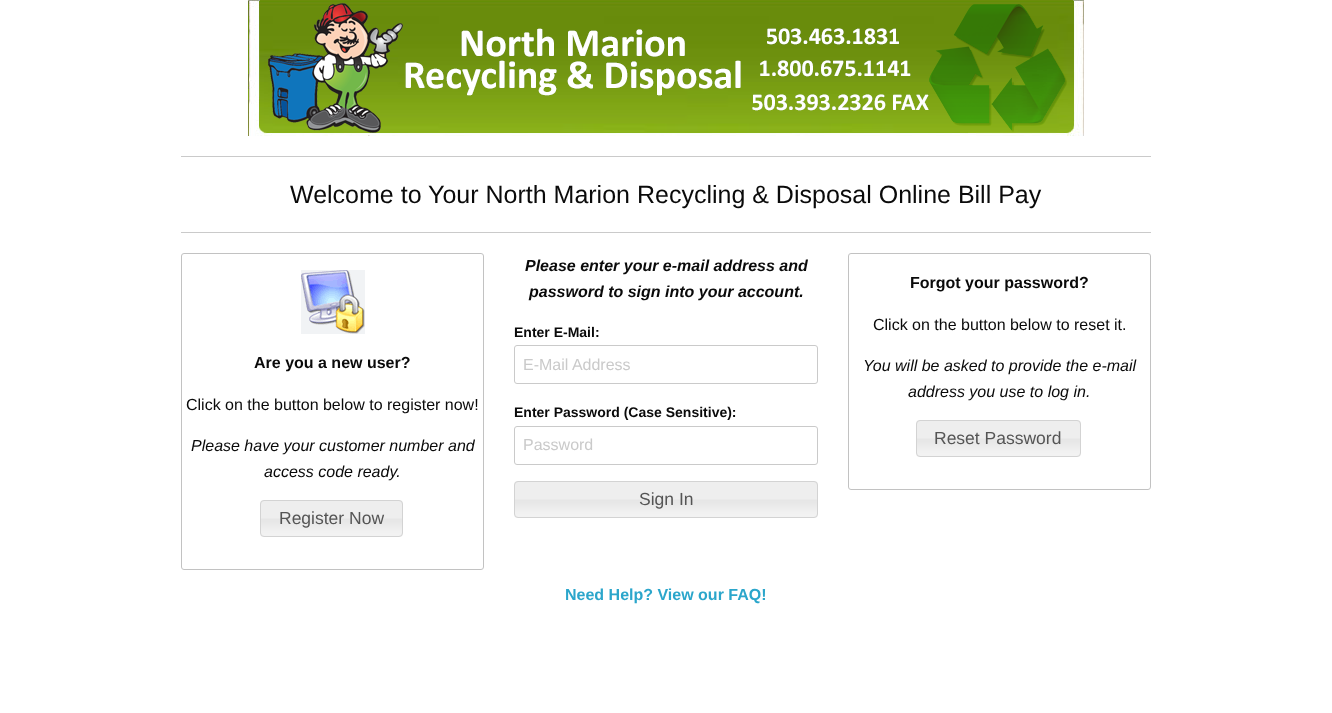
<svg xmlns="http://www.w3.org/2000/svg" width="1332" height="713">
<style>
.a{font:25px Liberation Sans;fill:#0a0a0a}
.b{font:bold 16px Liberation Sans;fill:#0a0a0a}
.c{font:16px Liberation Sans;fill:#0a0a0a}
.d{font:italic 16px Liberation Sans;fill:#0a0a0a}
.e{font:17.5px Liberation Sans;fill:#555}
.f{font:italic bold 16px Liberation Sans;fill:#0a0a0a}
.g{font:bold 14px Liberation Sans;fill:#0a0a0a}
.h{font:16px Liberation Sans;fill:#cacaca}
.i{font:bold 16px Liberation Sans;fill:#2ba6cb}
</style>
<rect width="100%" height="100%" fill="#fff"/>
<image href="1.png" x="248" y="0" width="836" height="136"/>
<path fill="#cacaca" d="M181 156h970v1H181z"/>
<path fill="#cacaca" d="M181 232h970v1H181z"/>
<rect fill="none" stroke="#c2c2c2" x="181.5" y="253.5" width="302" height="316" rx="2.5"/>
<image href="2.png" x="301" y="270" width="64" height="64"/>
<image href="3.png" x="260" y="500" width="143" height="37"/>
<rect fill="none" stroke="#d3d3d3" x="260.5" y="500.5" width="142" height="36" rx="3.5"/>
<rect fill="none" stroke="#cacaca" x="514.5" y="345.5" width="303" height="38" rx="2.5"/>
<rect fill="none" stroke="#cacaca" x="514.5" y="426.5" width="303" height="38" rx="2.5"/>
<image href="4.png" x="514" y="481" width="304" height="37"/>
<rect fill="none" stroke="#d3d3d3" x="514.5" y="481.5" width="303" height="36" rx="3.5"/>
<rect fill="none" stroke="#c2c2c2" x="848.5" y="253.5" width="302" height="236" rx="2.5"/>
<image href="5.png" x="916" y="420" width="165" height="37"/>
<rect fill="none" stroke="#d3d3d3" x="916.5" y="420.5" width="164" height="36" rx="3.5"/>
<text class="a" x="290" y="203">Welcome to Your North Marion Recycling &amp; Disposal Online Bill Pay</text>
<text class="b" x="254" y="368">Are you a new user?</text>
<text class="c" x="186" y="410">Click on the button below to register now!</text>
<text class="d" x="191" y="451">Please have your customer number and</text>
<text class="d" x="264" y="477">access code ready.</text>
<text class="e" x="279" y="524">Register Now</text>
<text class="f" x="525" y="271">Please enter your e-mail address and</text>
<text class="f" x="529" y="297">password to sign into your account.</text>
<text class="g" x="514" y="337">Enter E-Mail:</text>
<text class="h" x="523" y="370">E-Mail Address</text>
<text class="g" x="514" y="417">Enter Password (Case Sensitive):</text>
<text class="h" x="523" y="450">Password</text>
<text class="e" x="639" y="505">Sign In</text>
<text class="i" x="565" y="600">Need Help? View our FAQ!</text>
<text class="b" x="910" y="288">Forgot your password?</text>
<text class="c" x="873" y="330">Click on the button below to reset it.</text>
<text class="d" x="863" y="371">You will be asked to provide the e-mail</text>
<text class="d" x="908" y="397">address you use to log in.</text>
<text class="e" x="934" y="444">Reset Password</text>
</svg>
